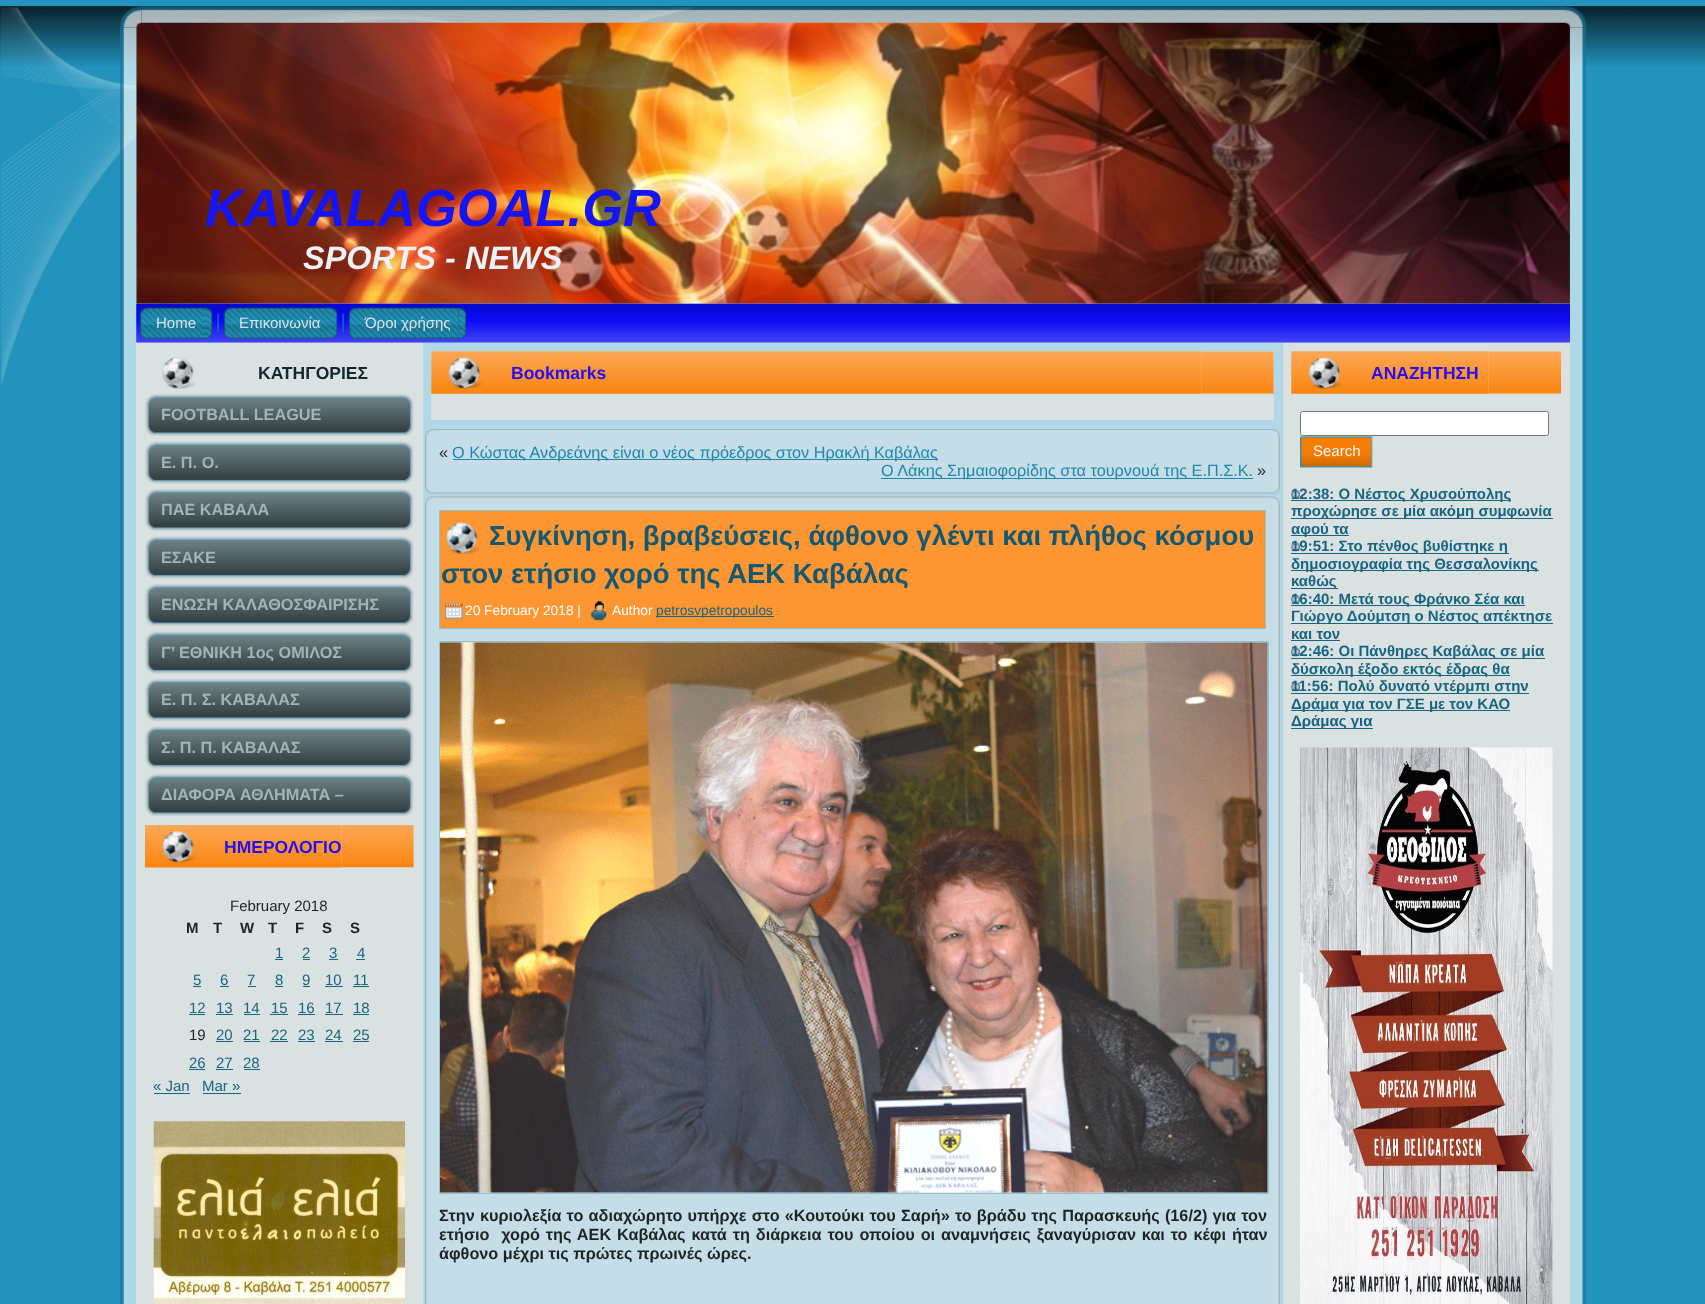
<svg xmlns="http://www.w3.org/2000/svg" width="1705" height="1304">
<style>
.a{font:italic bold 52.5px Liberation Sans;fill:#1414f5}
.b{font:italic bold 32.5px Liberation Sans;fill:#e9f2f6}
.c{font:15px Liberation Sans;fill:#dde3e4}
.d{font:bold 17.5px Liberation Sans;fill:#13272f}
.e{font:bold 16.25px Liberation Sans;fill:#a4b4b6}
.f{font:bold 17.5px Liberation Sans;fill:#250ef6}
.g{font:15px Liberation Sans;fill:#1e2425}
.h{font:bold 15px Liberation Sans;fill:#1e2425}
.i{font:15px Liberation Sans;fill:#176582}
.j{font:16.25px Liberation Sans;fill:#1e2425}
.k{font:16.25px Liberation Sans;fill:#1f87ad}
.l{font:bold 27.5px Liberation Sans;fill:#145871}
.m{font:13.75px Liberation Sans;fill:#fcfdfd}
.n{font:13.75px Liberation Sans;fill:#176582}
.o{font:bold 16.25px Liberation Sans;fill:#1e2425}
.p{font:15px Liberation Sans;fill:#f4f6f6}
.q{font:bold 15px Liberation Sans;fill:#176582}
</style>
<rect width="100%" height="100%" fill="#2193bc"/>
<image href="1.png" x="0" y="7" width="1705" height="59"/>
<path fill="#092933" d="M0 6h1705v1H0z"/>
<image href="2.png" x="1" y="7" width="693" height="378"/>
<image href="3.png" x="120" y="6" width="22" height="22"/>
<image href="4.png" x="141" y="6" width="1424" height="18"/>
<image href="5.png" x="1565" y="6" width="21" height="22"/>
<image href="6.png" x="120" y="27" width="22" height="1277"/>
<image href="54.png" x="1565" y="27" width="21" height="1277"/>
<path fill="#fdfdfda6" d="M141 303h1424v1001H141z"/>
<image href="7.png" x="136" y="22" width="1434" height="282"/>
<image href="8.png" x="141" y="27" width="1424" height="272"/>
<image href="9.png" x="136" y="303" width="1434" height="40"/>
<image href="10.png" x="140" y="307" width="65" height="32"/>
<image href="11.png" x="205" y="307" width="8" height="32"/>
<image href="12.png" x="217" y="313" width="2" height="20"/>
<image href="13.png" x="223" y="307" width="107" height="32"/>
<image href="11.png" x="330" y="307" width="8" height="32"/>
<image href="12.png" x="342" y="313" width="2" height="20"/>
<image href="14.png" x="348" y="307" width="111" height="32"/>
<image href="15.png" x="458" y="307" width="9" height="32"/>
<path fill="#dae1e1" d="M136 343h287v961H136z"/>
<image href="16.png" x="162" y="357" width="34" height="32"/>
<image href="17.png" x="145" y="394" width="255" height="42"/>
<image href="18.png" x="400" y="394" width="14" height="42"/>
<image href="19.png" x="145" y="441" width="255" height="43"/>
<image href="20.png" x="400" y="441" width="14" height="43"/>
<image href="17.png" x="145" y="489" width="255" height="42"/>
<image href="18.png" x="400" y="489" width="14" height="42"/>
<image href="19.png" x="145" y="536" width="255" height="43"/>
<image href="20.png" x="400" y="536" width="14" height="43"/>
<image href="21.png" x="145" y="584" width="255" height="42"/>
<image href="22.png" x="400" y="584" width="14" height="42"/>
<image href="19.png" x="145" y="631" width="255" height="43"/>
<image href="20.png" x="400" y="631" width="14" height="43"/>
<image href="17.png" x="145" y="679" width="255" height="42"/>
<image href="18.png" x="400" y="679" width="14" height="42"/>
<image href="19.png" x="145" y="726" width="255" height="43"/>
<image href="20.png" x="400" y="726" width="14" height="43"/>
<image href="23.png" x="145" y="774" width="255" height="42"/>
<image href="24.png" x="400" y="774" width="14" height="42"/>
<image href="25.png" x="145" y="825" width="197" height="43"/>
<image href="26.png" x="341" y="825" width="73" height="43"/>
<path fill="#176582" d="M275 959h8v1H275z"/>
<path fill="#176582" d="M303 959h7v1H303z"/>
<path fill="#176582" d="M329 959h9v1H329z"/>
<path fill="#176582" d="M356 959h9v1H356z"/>
<path fill="#176582" d="M193 986h8v1H193z"/>
<path fill="#176582" d="M220 986h9v1H220z"/>
<path fill="#176582" d="M248 986h8v1H248z"/>
<path fill="#176582" d="M275 986h8v1H275z"/>
<path fill="#176582" d="M303 986h7v1H303z"/>
<path fill="#176582" d="M325 986h18v1H325z"/>
<path fill="#176582" d="M353 986h16v1H353z"/>
<path fill="#176582" d="M189 1014h16v1H189z"/>
<path fill="#176582" d="M216 1014h17v1H216z"/>
<path fill="#176582" d="M244 1014h16v1H244z"/>
<path fill="#176582" d="M270 1014h18v1H270z"/>
<path fill="#176582" d="M298 1014h17v1H298z"/>
<path fill="#176582" d="M325 1014h18v1H325z"/>
<path fill="#176582" d="M353 1014h16v1H353z"/>
<path fill="#176582" d="M216 1041h17v1H216z"/>
<path fill="#176582" d="M244 1041h16v1H244z"/>
<path fill="#176582" d="M270 1041h18v1H270z"/>
<path fill="#176582" d="M298 1041h17v1H298z"/>
<path fill="#176582" d="M325 1041h18v1H325z"/>
<path fill="#176582" d="M353 1041h16v1H353z"/>
<path fill="#176582" d="M189 1069h16v1H189z"/>
<path fill="#176582" d="M216 1069h17v1H216z"/>
<path fill="#176582" d="M244 1069h16v1H244z"/>
<path fill="#176582" d="M154 1093h36v1H154z"/>
<path fill="#176582" d="M203 1093h38v1H203z"/>
<image href="27.png" x="153" y="1121" width="252" height="183"/>
<path fill="#dae1e1" d="M431 351h843v69H431z"/>
<image href="28.png" x="431" y="351" width="771" height="43"/>
<image href="29.png" x="1201" y="351" width="73" height="43"/>
<image href="30.png" x="425" y="429" width="9" height="9"/>
<image href="31.png" x="434" y="429" width="837" height="9"/>
<image href="32.png" x="1271" y="429" width="9" height="9"/>
<image href="33.png" x="425" y="437" width="9" height="48"/>
<path fill="#c5dde7" d="M434 438h837v47H434z"/>
<image href="34.png" x="1271" y="437" width="9" height="48"/>
<path fill="#1f87ad" d="M453 459h485v1H453z"/>
<path fill="#1f87ad" d="M881 478h372v1H881z"/>
<image href="35.png" x="425" y="485" width="9" height="9"/>
<image href="36.png" x="434" y="485" width="837" height="9"/>
<image href="37.png" x="1271" y="485" width="9" height="9"/>
<image href="38.png" x="425" y="496" width="9" height="9"/>
<image href="39.png" x="434" y="496" width="837" height="9"/>
<image href="40.png" x="1271" y="496" width="9" height="9"/>
<image href="41.png" x="425" y="505" width="9" height="799"/>
<path fill="#c5dde7" d="M434 505h837v799H434z"/>
<image href="42.png" x="1271" y="505" width="9" height="799"/>
<path fill="#fb9632" stroke="#92bfd3" d="M439.5 510.5h826v118H439.5z"/>
<image href="43.png" x="446" y="522" width="34" height="32"/>
<image href="44.png" x="445" y="602" width="18" height="17"/>
<image href="45.png" x="591" y="601" width="16" height="20"/>
<path fill="#176582" d="M656 616h118v1H656z"/>
<path fill="none" stroke="#92bfd3" d="M439.5 641.5h829v552H439.5z"/>
<image href="46.png" x="440" y="642" width="828" height="551"/>
<path fill="#dae1e1" d="M1283 343h287v961H1283z"/>
<image href="47.png" x="1291" y="351" width="198" height="43"/>
<image href="48.png" x="1488" y="351" width="74" height="43"/>
<rect fill="#fff" stroke="#767676" x="1300.5" y="411.5" width="248" height="24" rx="2"/>
<image href="49.png" x="1300" y="436" width="72" height="32"/>
<image href="50.png" x="1371" y="436" width="2" height="32"/>
<image href="51.png" x="1291" y="489" width="9" height="10"/>
<path fill="#176582" d="M1291 500h220v1H1291z"/>
<path fill="#176582" d="M1291 518h262v1H1291z"/>
<path fill="#176582" d="M1291 535h58v1H1291z"/>
<image href="52.png" x="1291" y="542" width="9" height="10"/>
<path fill="#176582" d="M1291 553h218v1H1291z"/>
<path fill="#176582" d="M1291 570h248v1H1291z"/>
<path fill="#176582" d="M1291 588h47v1H1291z"/>
<image href="51.png" x="1291" y="594" width="9" height="10"/>
<path fill="#176582" d="M1291 605h234v1H1291z"/>
<path fill="#176582" d="M1291 623h262v1H1291z"/>
<path fill="#176582" d="M1291 640h49v1H1291z"/>
<image href="52.png" x="1291" y="647" width="9" height="10"/>
<path fill="#176582" d="M1291 658h254v1H1291z"/>
<path fill="#176582" d="M1291 675h219v1H1291z"/>
<image href="52.png" x="1291" y="682" width="9" height="10"/>
<path fill="#176582" d="M1291 693h238v1H1291z"/>
<path fill="#176582" d="M1291 710h219v1H1291z"/>
<path fill="#176582" d="M1291 728h82v1H1291z"/>
<image href="53.png" x="1300" y="747" width="253" height="557"/>
<text class="a" x="205" y="226">KAVALAGOAL.GR</text>
<text class="b" x="303" y="269">SPORTS - NEWS</text>
<text class="c" x="156" y="328">Home</text>
<text class="c" x="239" y="328">Επικοινωνία</text>
<text class="c" x="365" y="328">Όροι χρήσης</text>
<text class="d" x="258" y="379">ΚΑΤΗΓΟΡΙΕΣ</text>
<text class="e" x="161" y="420">FOOTBALL LEAGUE</text>
<text class="e" x="161" y="468">Ε. Π. Ο.</text>
<text class="e" x="161" y="515">ΠΑΕ ΚΑΒΑΛΑ</text>
<text class="e" x="161" y="563">ΕΣΑΚΕ</text>
<text class="e" x="161" y="610">ΕΝΩΣΗ ΚΑΛΑΘΟΣΦΑΙΡΙΣΗΣ</text>
<text class="e" x="161" y="658">Γ’ ΕΘΝΙΚΗ 1ος ΟΜΙΛΟΣ</text>
<text class="e" x="161" y="705">Ε. Π. Σ. ΚΑΒΑΛΑΣ</text>
<text class="e" x="161" y="753">Σ. Π. Π. ΚΑΒΑΛΑΣ</text>
<text class="e" x="161" y="800">ΔΙΑΦΟΡΑ ΑΘΛΗΜΑΤΑ –</text>
<text class="f" x="224" y="853">ΗΜΕΡΟΛΟΓΙΟ</text>
<text class="g" x="230" y="911">February 2018</text>
<text class="h" x="186" y="933">M</text>
<text class="h" x="213" y="933">T</text>
<text class="h" x="240" y="933">W</text>
<text class="h" x="268" y="933">T</text>
<text class="h" x="295" y="933">F</text>
<text class="h" x="322" y="933">S</text>
<text class="h" x="350" y="933">S</text>
<text class="i" x="275" y="958">1</text>
<text class="i" x="302" y="958">2</text>
<text class="i" x="329" y="958">3</text>
<text class="i" x="357" y="958">4</text>
<text class="i" x="193" y="985">5</text>
<text class="i" x="220" y="985">6</text>
<text class="i" x="247" y="985">7</text>
<text class="i" x="275" y="985">8</text>
<text class="i" x="302" y="985">9</text>
<text class="i" x="325" y="985">10</text>
<text class="i" x="353" y="985">11</text>
<text class="i" x="189" y="1013">12</text>
<text class="i" x="216" y="1013">13</text>
<text class="i" x="243" y="1013">14</text>
<text class="i" x="271" y="1013">15</text>
<text class="i" x="298" y="1013">16</text>
<text class="i" x="325" y="1013">17</text>
<text class="i" x="353" y="1013">18</text>
<text class="g" x="189" y="1040">19</text>
<text class="i" x="216" y="1040">20</text>
<text class="i" x="243" y="1040">21</text>
<text class="i" x="271" y="1040">22</text>
<text class="i" x="298" y="1040">23</text>
<text class="i" x="325" y="1040">24</text>
<text class="i" x="353" y="1040">25</text>
<text class="i" x="189" y="1068">26</text>
<text class="i" x="216" y="1068">27</text>
<text class="i" x="243" y="1068">28</text>
<text class="i" x="153" y="1091">« Jan</text>
<text class="i" x="202" y="1091">Mar »</text>
<text class="f" x="511" y="379">Bookmarks</text>
<text class="j" x="439" y="458">«</text>
<text class="k" x="452" y="458">O Κώστας Ανδρεάνης είναι ο νέος πρόεδρος στον Ηρακλή Καβάλας</text>
<text class="k" x="881" y="476">Ο Λάκης Σημαιοφορίδης στα τουρνουά της Ε.Π.Σ.Κ.</text>
<text class="j" x="1257" y="476">»</text>
<text class="l" x="489" y="545">Συγκίνηση, βραβεύσεις, άφθονο γλέντι και πλήθος κόσμου</text>
<text class="l" x="441" y="583">στον ετήσιο χορό της ΑΕΚ Καβάλας</text>
<text class="m" x="465" y="615">20 February 2018 |</text>
<text class="m" x="612" y="615">Author</text>
<text class="n" x="656" y="615">petrosvpetropoulos</text>
<text class="o" x="439" y="1221" word-spacing="0.7">Στην κυριολεξία το αδιαχώρητο υπήρχε στο «Κουτούκι του Σαρή» το βράδυ της Παρασκευής (16/2) για τον</text>
<text class="o" xml:space="preserve" x="439" y="1240" word-spacing="1.4">ετήσιο  χορό της ΑΕΚ Καβάλας κατά τη διάρκεια του οποίου οι αναμνήσεις ξαναγύρισαν και το κέφι ήταν</text>
<text class="o" x="439" y="1259">άφθονο μέχρι τις πρώτες πρωινές ώρες.</text>
<text class="f" x="1371" y="379">ΑΝΑΖΗΤΗΣΗ</text>
<text class="p" x="1313" y="456">Search</text>
<text class="q" x="1291" y="499">12:38: Ο Νέστος Χρυσούπολης</text>
<text class="q" x="1291" y="516">προχώρησε σε μία ακόμη συμφωνία</text>
<text class="q" x="1291" y="534">αφού τα</text>
<text class="q" x="1291" y="551">19:51: Στο πένθος βυθίστηκε η</text>
<text class="q" x="1291" y="569">δημοσιογραφία της Θεσσαλονίκης</text>
<text class="q" x="1291" y="586">καθώς</text>
<text class="q" x="1291" y="604">16:40: Μετά τους Φράνκο Σέα και</text>
<text class="q" x="1291" y="621">Γιώργο Δούμτση ο Νέστος απέκτησε</text>
<text class="q" x="1291" y="639">και τον</text>
<text class="q" x="1291" y="656">12:46: Οι Πάνθηρες Καβάλας σε μία</text>
<text class="q" x="1291" y="674">δύσκολη έξοδο εκτός έδρας θα</text>
<text class="q" x="1291" y="691">11:56: Πολύ δυνατό ντέρμπι στην</text>
<text class="q" x="1291" y="709">Δράμα για τον ΓΣΕ με τον ΚΑΟ</text>
<text class="q" x="1291" y="726">Δράμας για</text>
</svg>
